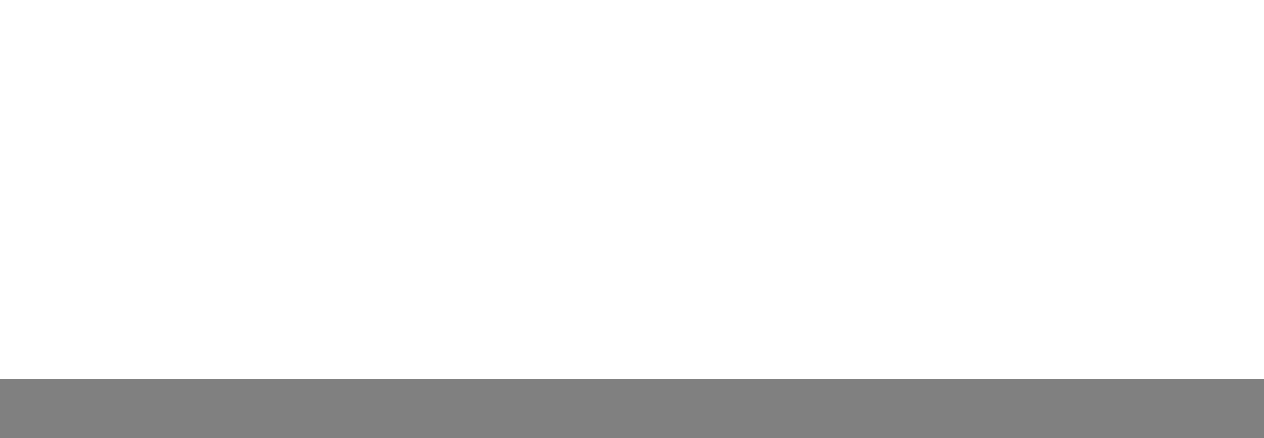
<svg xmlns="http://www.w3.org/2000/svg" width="1264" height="438">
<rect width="100%" height="100%" fill="#fff"/>
<path fill="#808080" d="M0 379h1264v59H0z"/>
</svg>
